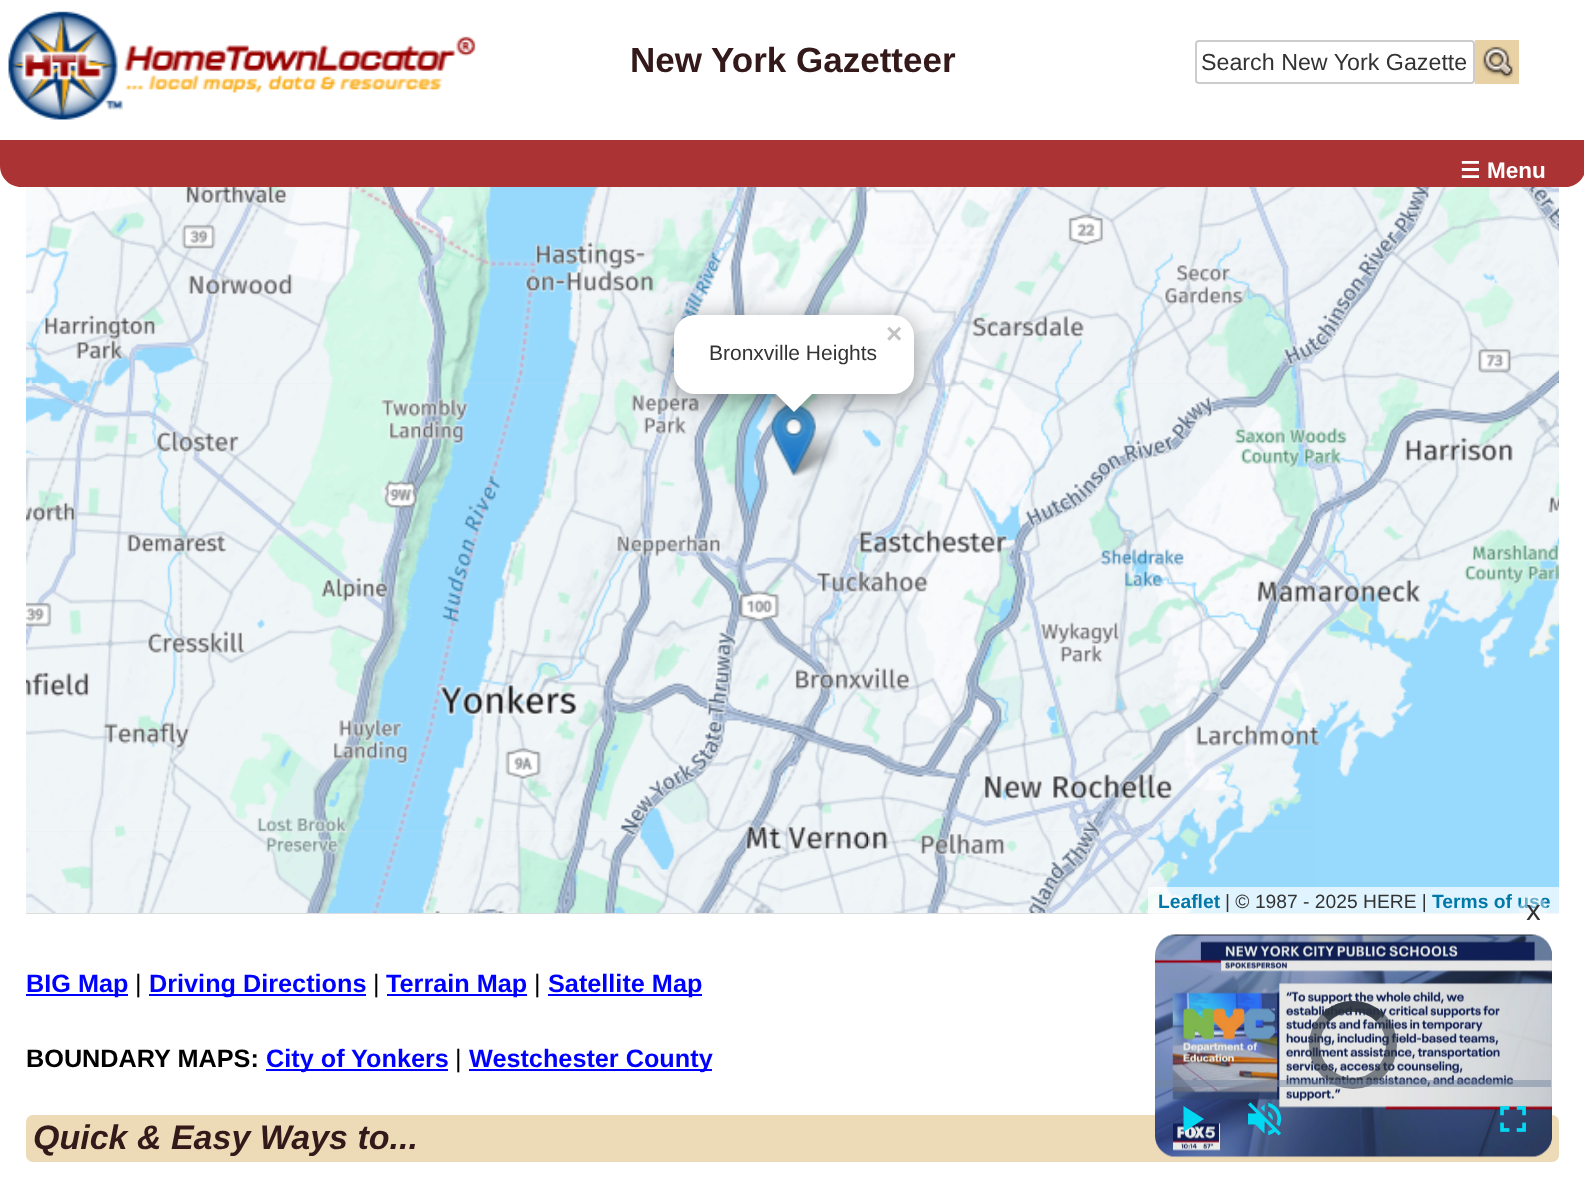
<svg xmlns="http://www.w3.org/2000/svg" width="1584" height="1183">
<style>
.a{font:bold 35px Liberation Sans;fill:#331919}
.b{font:23.25px Liberation Sans;fill:#333}
.c{font:bold 22.5px DejaVu Sans;fill:#fff}
.d{font:bold 22.5px Liberation Sans;fill:#fff}
.e{font:bold 28px Liberation Sans;fill:#c3c3c3}
.f{font:21px Liberation Sans;fill:#333}
.g{font:bold 19.25px Liberation Sans;fill:#0078a8}
.h{font:19.25px Liberation Sans;fill:#333}
.i{font:28px Noto Sans;fill:#333}
.j{font:bold 25.25px Liberation Sans;fill:#00f}
.k{font:25.25px Liberation Sans;fill:#000}
.l{font:bold 25.25px Liberation Sans;fill:#000}
.m{font:italic bold 34px Liberation Sans;fill:#331919}
</style>
<defs>
<clipPath id="clip1"><path d="M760 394h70v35H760z"/></clipPath>
<clipPath id="clip2"><path d="M760 394h70v35H760z"/></clipPath>
</defs>
<rect width="100%" height="100%" fill="#fff"/>
<image href="1.png" x="8" y="11" width="468" height="109"/>
<rect fill="none" stroke="#ccc" stroke-width="2" x="1196" y="41" width="278" height="42" rx="3"/>
<path fill="#e8d1a4" d="M1475 40h44v44H1475z"/>
<image href="2.png" x="1482" y="46" width="32" height="33"/>
<path fill="#ab3334" d="M0 140h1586v26c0 11.5-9.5 21-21 21h-1544c-11.5 0-21-9.5-21-21z"/>
<path fill="#ddd" d="M26 383h1533v531H26z"/>
<image href="3.png" x="26" y="187" width="394" height="196"/>
<image href="4.png" x="420" y="187" width="448" height="196"/>
<image href="5.png" x="868" y="187" width="448" height="196"/>
<image href="6.png" x="1316" y="187" width="243" height="196"/>
<image href="7.png" x="26" y="383" width="394" height="448"/>
<image href="8.png" x="420" y="383" width="448" height="448"/>
<image href="9.png" x="868" y="383" width="448" height="448"/>
<image href="10.png" x="1316" y="383" width="243" height="448"/>
<image href="11.png" x="26" y="830" width="394" height="83"/>
<image href="12.png" x="420" y="830" width="448" height="83"/>
<image href="13.png" x="868" y="830" width="448" height="83"/>
<path fill="#97dafe" d="M1316 831h243v82H1316z"/>
<image href="15.png" x="787" y="426" width="52" height="50"/>
<image href="14.png" x="771" y="405" width="45" height="71"/>
<rect fill="#00000066" filter="blur(12px)" x="674" y="320" width="240" height="79" rx="21"/>
<rect fill="#fff" x="674" y="315" width="240" height="79" rx="21"/>
<g clip-path="url(#clip1)">
<path fill="#00000066" filter="blur(12.5px)" d="M779 382h30v29H779z"/>
</g>
<g clip-path="url(#clip2)">
<path fill="#fff" d="M794 370l21 21l-21 21l-21-21z"/>
</g>
<path fill="#ffffffb3" d="M1148 887h411v27H1148z"/>
<rect fill="#eddab6" x="26" y="1115" width="1533" height="47" rx="7"/>
<image href="16.png" x="1155" y="934" width="397" height="224"/>
<circle fill="none" stroke="#2b333f96" stroke-width="11" cx="1353" cy="1045" r="38.5"/>
<path fill="none" stroke="#2b333f96" stroke-width="10.5" d="M1325.5 1017.5c15-15 39.5-15 54.5 0"/>
<path fill="none" stroke="#2b333f96" stroke-width="10.5" d="M1325.5 1017.5c15-15 39.5-15 54.5 0"/>
<path fill="#73859f80" d="M1155 1080h396v7H1155z"/>
<path fill="#03d8f3" d="M1183.5 1106v26l20.5-13z"/>
<image href="17.png" x="1248" y="1102" width="34" height="34"/>
<image href="18.png" x="1500" y="1106" width="26" height="26"/>
<path fill="#00f" d="M26 994h102v2H26z"/>
<path fill="#00f" d="M149 994h217v2H149z"/>
<path fill="#00f" d="M387 994h140v2H387z"/>
<path fill="#00f" d="M548 994h154v2H548z"/>
<path fill="#00f" d="M266 1069h182v2H266z"/>
<path fill="#00f" d="M469 1069h243v2H469z"/>
<text class="a" x="630" y="72">New York Gazetteer</text>
<text class="b" x="1201" y="70">Search New York Gazette</text>
<text class="c" x="1460" y="178">☰</text>
<text class="d" x="1487" y="178">Menu</text>
<text class="e" x="886" y="343">×</text>
<text class="f" x="709" y="360">Bronxville Heights</text>
<text class="g" x="1158" y="908">Leaflet</text>
<text class="h" x="1225" y="908">| © 1987 - 2025 HERE |</text>
<text class="g" x="1432" y="908">Terms of use</text>
<circle fill="#ffffff66" cx="1533" cy="910" r="14"/>
<text class="i" x="1526" y="920">x</text>
<text class="j" x="26" y="992">BIG Map</text>
<text class="k" x="135" y="992">|</text>
<text class="j" x="149" y="992">Driving Directions</text>
<text class="k" x="373" y="992">|</text>
<text class="j" x="386" y="992">Terrain Map</text>
<text class="k" x="534" y="992">|</text>
<text class="j" x="548" y="992">Satellite Map</text>
<text class="l" x="26" y="1067">BOUNDARY MAPS:</text>
<text class="j" x="266" y="1067">City of Yonkers</text>
<text class="k" x="455" y="1067">|</text>
<text class="j" x="469" y="1067">Westchester County</text>
<text class="m" x="33" y="1149">Quick &amp; Easy Ways to...</text>
</svg>
